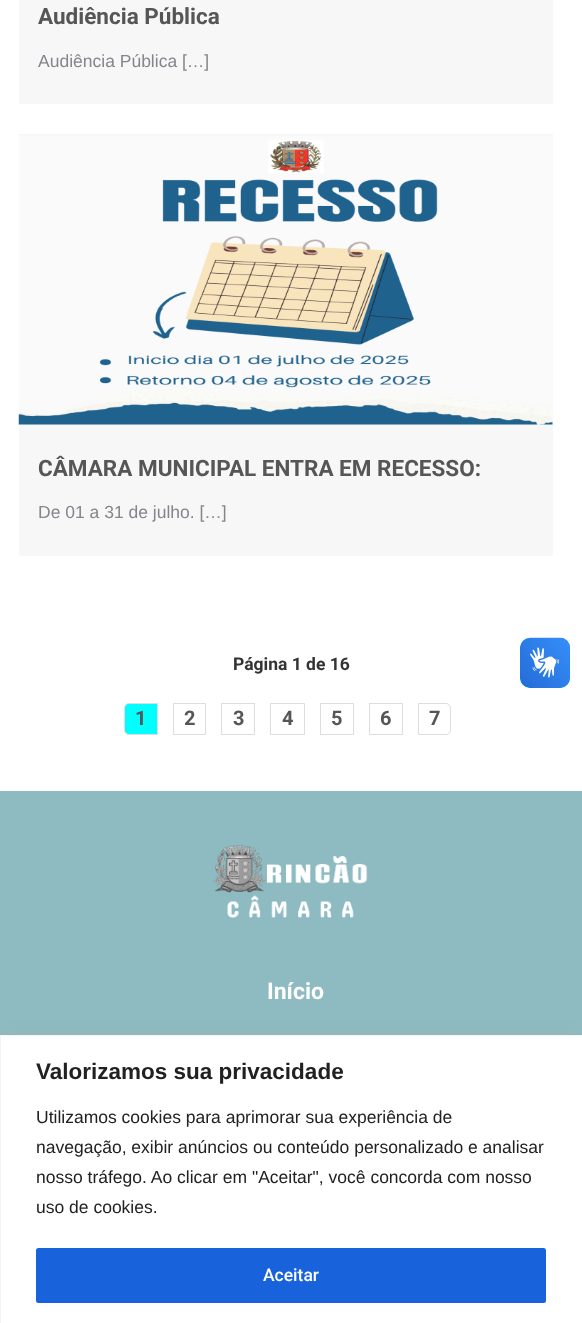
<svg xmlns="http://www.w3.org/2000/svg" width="582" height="1323">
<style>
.a{font:bold 22.5px Roboto;fill:#565656}
.b{font:17.5px Liberation Sans;fill:#85868c}
.c{font:bold 17.5px Roboto;fill:#333}
.d{font:bold 20px Roboto;fill:#565656}
.e{font:bold 23px Roboto;fill:#fff}
.f{font:bold 22.5px Liberation Sans;fill:#212121}
.g{font:17.5px Liberation Sans;fill:#212121}
.h{font:500 17.5px Roboto;fill:#fff}
</style>
<rect width="100%" height="100%" fill="#fff"/>
<path fill="#f7f7f7" d="M19 0h534v104H19z"/>
<path fill="#f7f7f7" d="M19 135h534v421H19z"/>
<image href="1.png" x="18" y="134" width="535" height="291"/>
<path fill="#0ff" stroke="#ddd" d="M129 703.5h28.5v31h-28.5c-2.5 0-4.5-2-4.5-4.5v-22c0-2.5 2-4.5 4.5-4.5z"/>
<path fill="none" stroke="#ddd" d="M173.5 703.5h32v31H173.5z"/>
<path fill="none" stroke="#ddd" d="M221.5 703.5h33v31H221.5z"/>
<path fill="none" stroke="#ddd" d="M270.5 703.5h34v31H270.5z"/>
<path fill="none" stroke="#ddd" d="M320.5 703.5h33v31H320.5z"/>
<path fill="none" stroke="#ddd" d="M369.5 703.5h33v31H369.5z"/>
<path fill="none" stroke="#ddd" d="M418.5 703.5h27.5c2.5 0 4.5 2 4.5 4.5v22c0 2.5-2 4.5-4.5 4.5h-27.5z"/>
<rect fill="#0ff" x="520" y="638" width="50" height="50" rx="10"/>
<image href="2.png" x="520" y="637" width="50" height="51"/>
<image href="3.png" x="520" y="638" width="50" height="50"/>
<path fill="#8dbbc1" d="M0 791h582v244H0z"/>
<image href="4.png" x="212" y="845" width="156" height="73"/>
<path fill="#acabab4d" filter="blur(6px)" d="M0 1034h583v289H0z"/>
<path fill="#fff" stroke="#f4f4f4" d="M0.5 1035.5h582v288H0.5z"/>
<rect fill="#1863dc" stroke="#1863dc" stroke-width="3" x="37.5" y="1249.5" width="507" height="52" rx="1"/>
<text class="a" x="38" y="24">Audiência Pública</text>
<text class="b" x="38" y="67">Audiência Pública […]</text>
<text class="a" x="38" y="476">CÂMARA MUNICIPAL ENTRA EM RECESSO:</text>
<text class="b" x="38" y="518">De 01 a 31 de julho. […]</text>
<text class="c" x="233" y="670">Página 1 de 16</text>
<text class="d" x="135" y="725">1</text>
<text class="d" x="184" y="725">2</text>
<text class="d" x="233" y="725">3</text>
<text class="d" x="282" y="725">4</text>
<text class="d" x="331" y="725">5</text>
<text class="d" x="380" y="725">6</text>
<text class="d" x="429" y="725">7</text>
<text class="e" x="267" y="999">Início</text>
<text class="f" x="36" y="1079">Valorizamos sua privacidade</text>
<text class="g" x="36" y="1123">Utilizamos cookies para aprimorar sua experiência de</text>
<text class="g" x="36" y="1153">navegação, exibir anúncios ou conteúdo personalizado e analisar</text>
<text class="g" x="36" y="1183">nosso tráfego. Ao clicar em "Aceitar", você concorda com nosso</text>
<text class="g" x="36" y="1213">uso de cookies.</text>
<text class="h" x="263" y="1281">Aceitar</text>
</svg>
